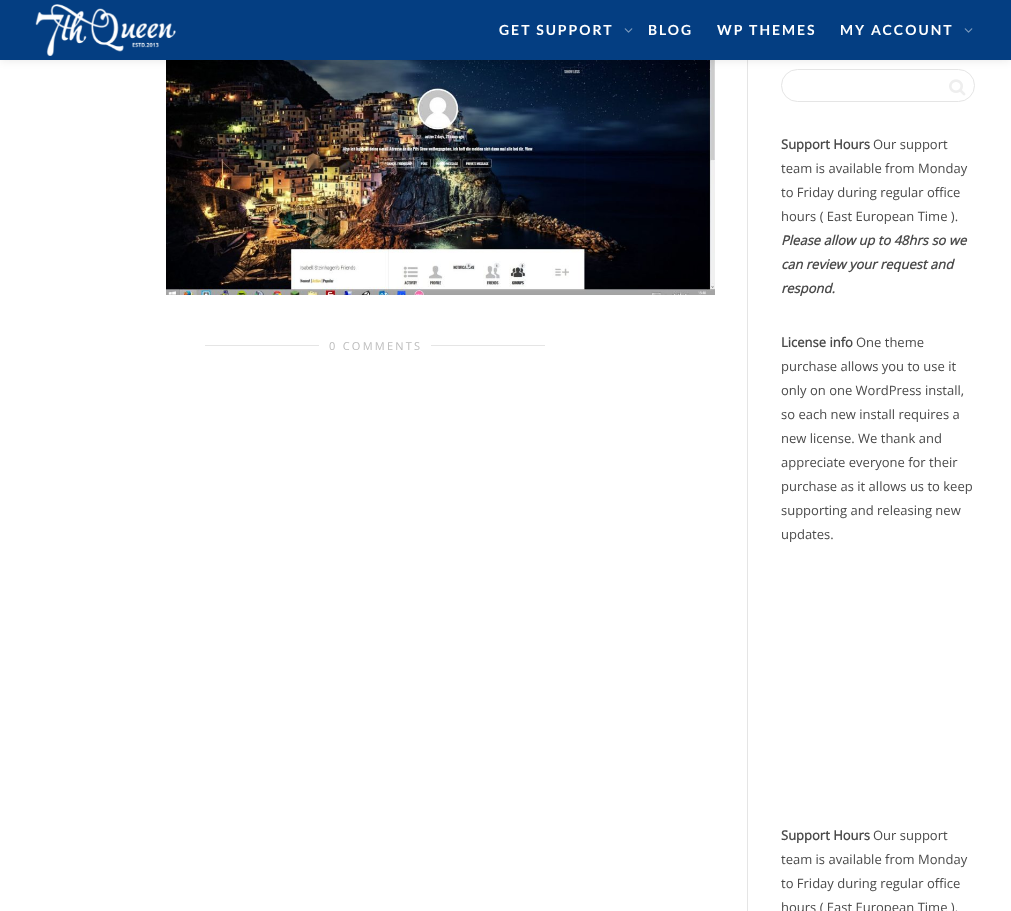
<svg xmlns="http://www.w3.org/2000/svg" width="1011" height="911">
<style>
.a{font:bold 14px Lato;letter-spacing:2px;fill:#fff}
.b{font:11px Open Sans;letter-spacing:2.25px;fill:#bbb}
.c{font:bold 13px Open Sans;fill:#4a4a4a}
.d{font:13px Open Sans;fill:#4a4a4a}
.e{font:italic bold 13px Open Sans;fill:#4a4a4a}
</style>
<rect width="100%" height="100%" fill="#fff"/>
<path fill="#e5e5e5" d="M747 60h1v851H747z"/>
<image href="3.png" x="166" y="60" width="549" height="235"/>
<rect fill="none" stroke="#e5e5e5" x="781.5" y="69.5" width="193" height="32" rx="16"/>
<path fill="#0000001a" filter="blur(5px)" d="M0 0h1011v60H0z"/>
<path fill="#043e82" d="M0 0h1011v60H0z"/>
<image href="1.png" x="35" y="4" width="141" height="52"/>
<image href="2.png" x="624" y="28" width="9" height="5"/>
<image href="2.png" x="964" y="28" width="9" height="5"/>
<path fill="#e5e5e5" d="M205 345h340v1H205z"/>
<rect fill="#fff" x="319" y="336" width="112" height="19" rx="2"/>
<image href="4.png" x="949" y="79" width="17" height="17"/>
<text class="a" x="499" y="35">GET SUPPORT</text>
<text class="a" x="648" y="35">BLOG</text>
<text class="a" x="717" y="35">WP THEMES</text>
<text class="a" x="840" y="35">MY ACCOUNT</text>
<text class="b" x="329" y="350">0 COMMENTS</text>
<text class="c" x="781" y="149">Support Hours</text>
<text class="d" x="873" y="149">Our support</text>
<text class="d" x="781" y="173">team is available from Monday</text>
<text class="d" x="781" y="197">to Friday during regular office</text>
<text class="d" x="781" y="221">hours ( East European Time ).</text>
<text class="e" x="781" y="245">Please allow up to 48hrs so we</text>
<text class="e" x="781" y="269">can review your request and</text>
<text class="e" x="781" y="293">respond.</text>
<text class="c" x="781" y="347">License info</text>
<text class="d" x="856" y="347">One theme</text>
<text class="d" x="781" y="371">purchase allows you to use it</text>
<text class="d" x="781" y="395">only on one WordPress install,</text>
<text class="d" x="781" y="419">so each new install requires a</text>
<text class="d" x="781" y="443">new license. We thank and</text>
<text class="d" x="781" y="467">appreciate everyone for their</text>
<text class="d" x="781" y="491">purchase as it allows us to keep</text>
<text class="d" x="781" y="515">supporting and releasing new</text>
<text class="d" x="781" y="539">updates.</text>
<text class="c" x="781" y="840">Support Hours</text>
<text class="d" x="873" y="840">Our support</text>
<text class="d" x="781" y="864">team is available from Monday</text>
<text class="d" x="781" y="888">to Friday during regular office</text>
<text class="d" x="781" y="912">hours ( East European Time ).</text>
</svg>
